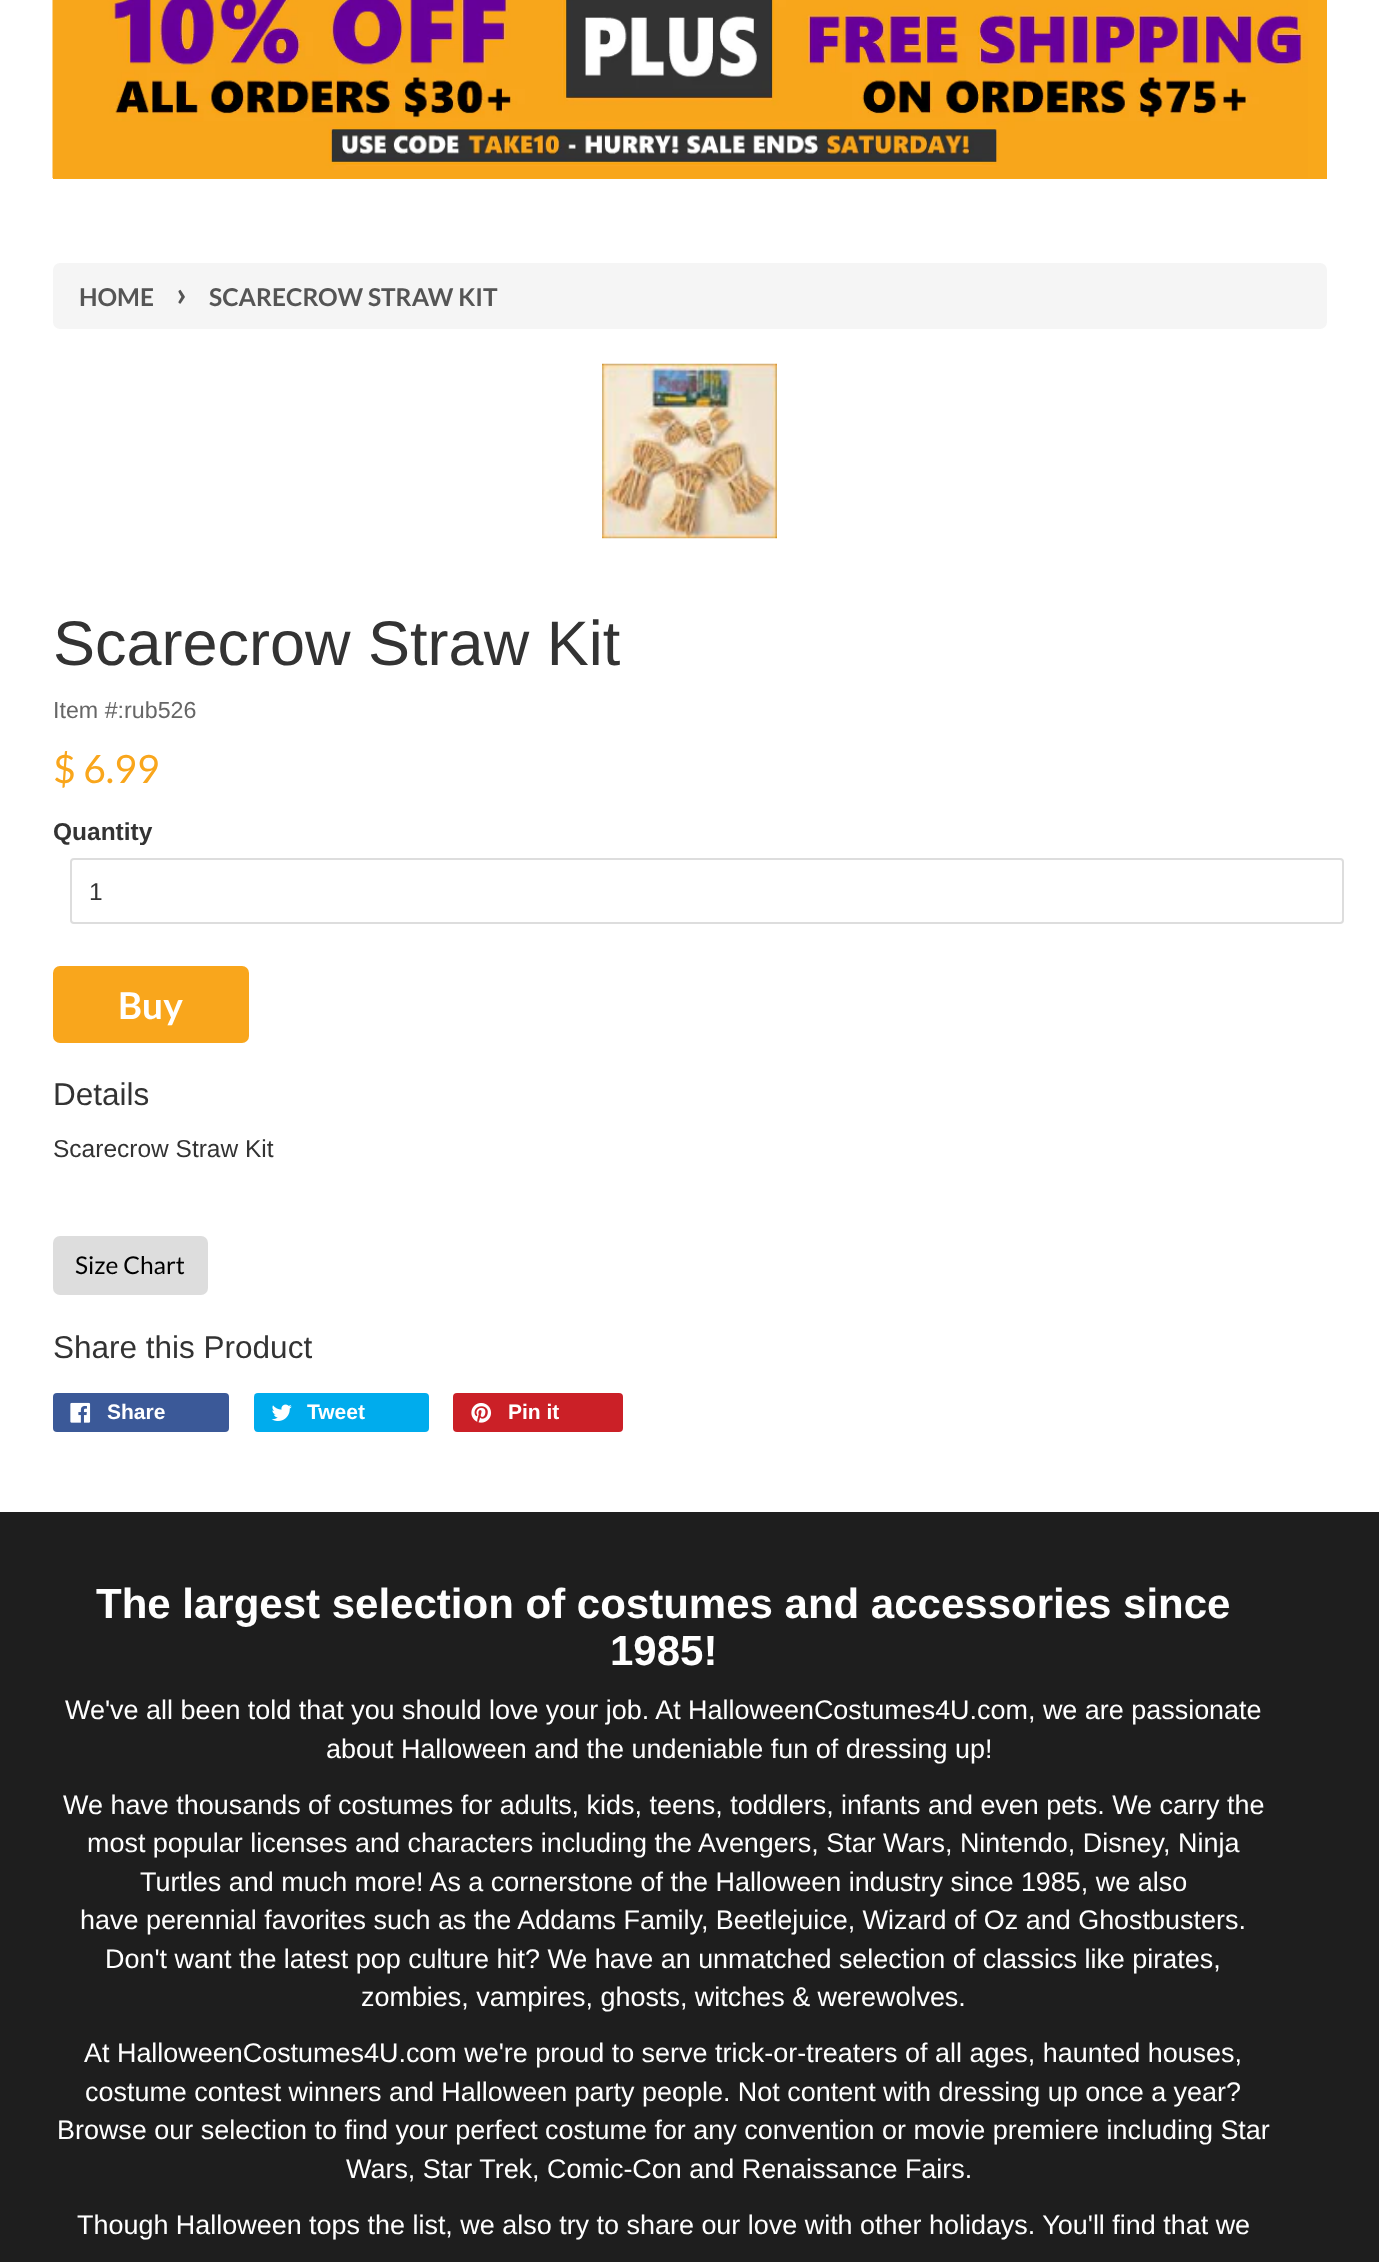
<svg xmlns="http://www.w3.org/2000/svg" width="1379" height="2262">
<style>
.a{font:bold 24.5px Lato;fill:#555}
.b{font:bold 34px Lato;fill:#555}
.c{font:63px Liberation Sans;fill:#333}
.d{font:23.25px Liberation Sans;fill:#666}
.e{font:39px Lato;fill:#f9a61c}
.f{font:bold 24.5px Liberation Sans;fill:#333}
.g{font:24.5px Liberation Sans;fill:#333}
.h{font:bold 37px Lato;fill:#fff}
.i{font:31.5px Liberation Sans;fill:#333}
.j{font:24.5px Lato;fill:#000}
.k{font:bold 21px Liberation Sans;fill:#fff}
.l{font:bold 42px Liberation Sans;fill:#fff}
.m{font:26.95px Liberation Sans;fill:#fff}
</style>
<rect width="100%" height="100%" fill="#fff"/>
<path fill="#f9a81b" d="M53 0h1274v179H53z"/>
<image href="1.png" x="52" y="0" width="1256" height="178"/>
<rect fill="#f5f5f5" x="53" y="263" width="1274" height="66" rx="7"/>
<image href="2.png" x="602" y="363" width="175" height="176"/>
<rect fill="none" stroke="#ddd" stroke-width="2" x="71" y="859" width="1272" height="64" rx="3"/>
<rect fill="#f9a61c" x="53" y="966" width="196" height="77" rx="7"/>
<rect fill="#ddd" x="53" y="1236" width="155" height="59" rx="7"/>
<rect fill="#3b5998" x="53" y="1393" width="176" height="39" rx="4"/>
<image href="3.png" x="70" y="1402" width="21" height="21"/>
<rect fill="#00aced" x="254" y="1393" width="175" height="39" rx="4"/>
<image href="4.png" x="271" y="1404" width="21" height="17"/>
<rect fill="#cb2027" x="453" y="1393" width="170" height="39" rx="4"/>
<image href="5.png" x="471" y="1403" width="21" height="20"/>
<path fill="#1e1e1e" d="M0 1512h1379v750H0z"/>
<text class="a" x="79" y="306">HOME</text>
<text class="b" x="176" y="306">›</text>
<text class="a" x="209" y="306">SCARECROW STRAW KIT</text>
<text class="c" x="53" y="665">Scarecrow Straw Kit</text>
<text class="d" x="53" y="718">Item #:rub526</text>
<text class="e" x="53" y="783">$ 6.99</text>
<text class="f" x="53" y="840">Quantity</text>
<text class="g" x="89" y="900">1</text>
<text class="h" x="118" y="1019">Buy</text>
<text class="i" x="53" y="1105">Details</text>
<text class="g" x="53" y="1157">Scarecrow Straw Kit</text>
<text class="j" x="75" y="1274">Size Chart</text>
<text class="i" x="53" y="1358">Share this Product</text>
<text class="k" x="107" y="1419">Share</text>
<text class="k" x="307" y="1419">Tweet</text>
<text class="k" x="508" y="1419">Pin it</text>
<text class="l" x="96" y="1618">The largest selection of costumes and accessories since</text>
<text class="l" x="610" y="1665">1985!</text>
<text class="m" x="65" y="1719">We've all been told that you should love your job. At HalloweenCostumes4U.com, we are passionate</text>
<text class="m" x="326" y="1758">about Halloween and the undeniable fun of dressing up!</text>
<text class="m" x="63" y="1814">We have thousands of costumes for adults, kids, teens, toddlers, infants and even pets. We carry the</text>
<text class="m" x="87" y="1852">most popular licenses and characters including the Avengers, Star Wars, Nintendo, Disney, Ninja</text>
<text class="m" x="140" y="1891">Turtles and much more! As a cornerstone of the Halloween industry since 1985, we also</text>
<text class="m" x="80" y="1929">have perennial favorites such as the Addams Family, Beetlejuice, Wizard of Oz and Ghostbusters.</text>
<text class="m" x="105" y="1968">Don't want the latest pop culture hit? We have an unmatched selection of classics like pirates,</text>
<text class="m" x="361" y="2006">zombies, vampires, ghosts, witches &amp; werewolves.</text>
<text class="m" x="84" y="2062">At HalloweenCostumes4U.com we're proud to serve trick-or-treaters of all ages, haunted houses,</text>
<text class="m" x="85" y="2101">costume contest winners and Halloween party people. Not content with dressing up once a year?</text>
<text class="m" x="57" y="2139">Browse our selection to find your perfect costume for any convention or movie premiere including Star</text>
<text class="m" x="346" y="2178">Wars, Star Trek, Comic-Con and Renaissance Fairs.</text>
<text class="m" x="77" y="2234">Though Halloween tops the list, we also try to share our love with other holidays. You'll find that we</text>
</svg>
